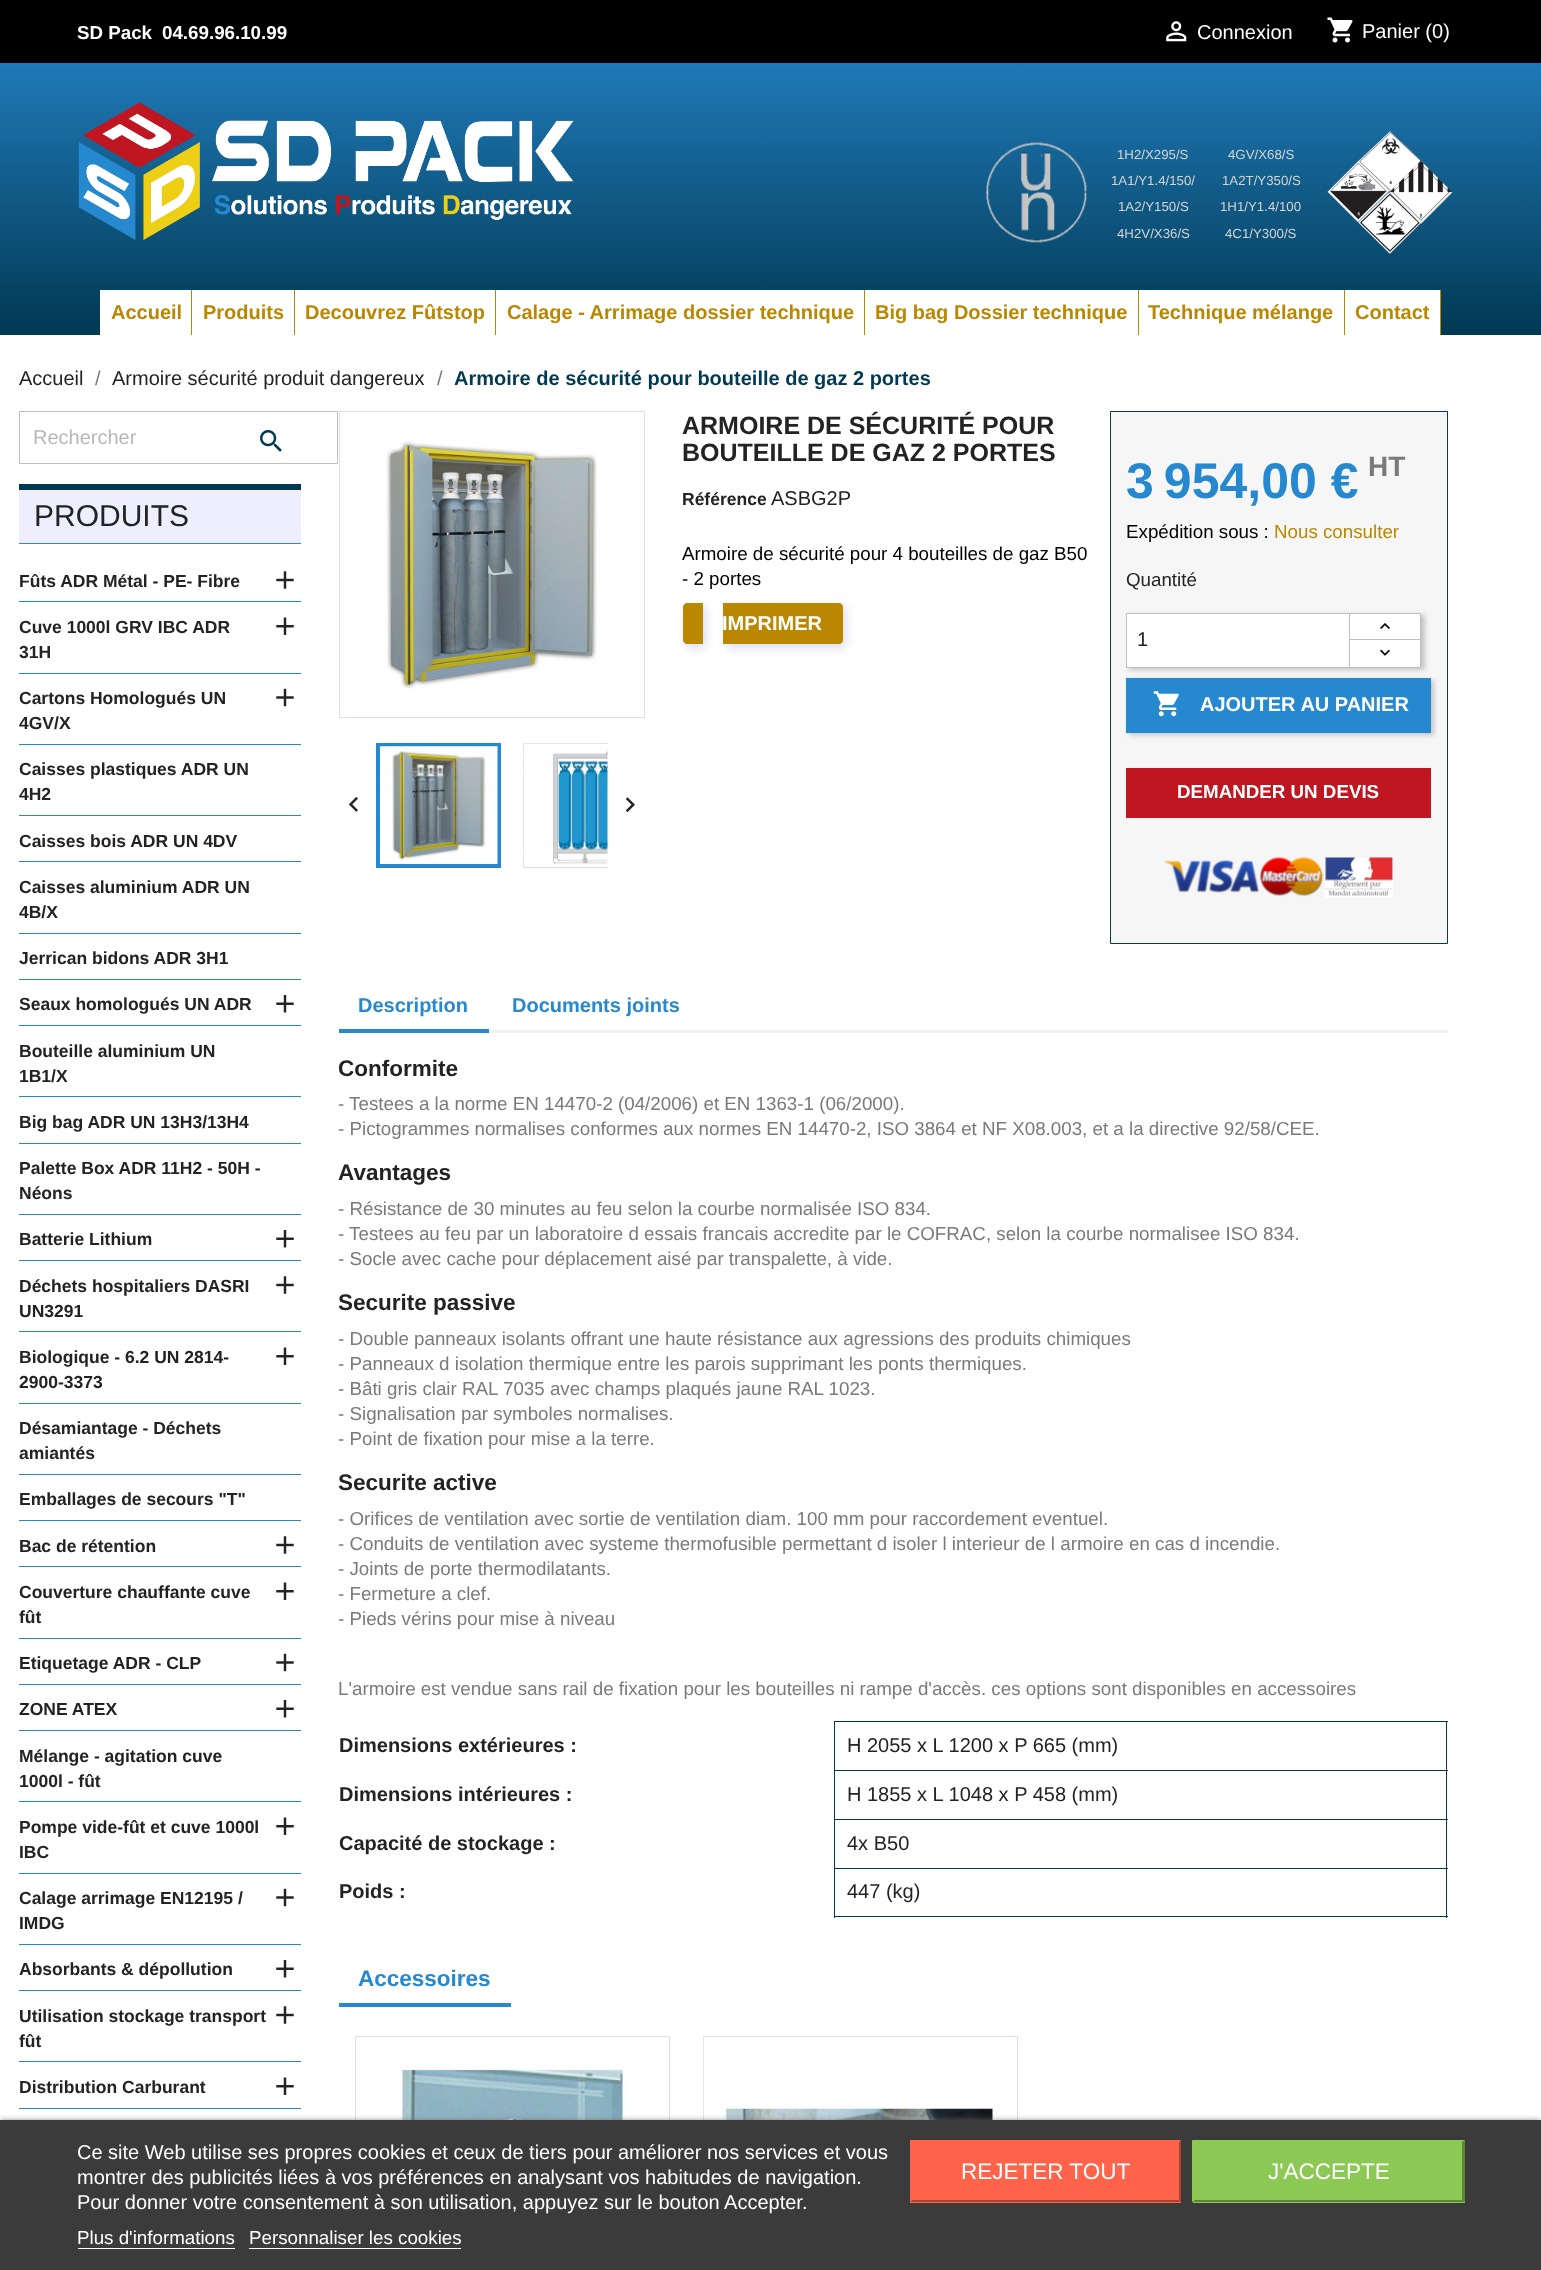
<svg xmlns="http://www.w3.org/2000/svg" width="1541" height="2270">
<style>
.a{font:bold 18.75px Liberation Sans;fill:#fff}
.b{font:20px Liberation Sans;fill:#fff}
.c{font:13.25px Liberation Sans;fill:#d4d4d4}
.d{font:bold 20px Liberation Sans;fill:#b98700}
.e{font:20px Liberation Sans;fill:#232323}
.f{font:20px Liberation Sans;fill:#7a7a7a}
.g{font:bold 20px Liberation Sans;fill:#013953}
.h{font:20px Liberation Sans;fill:#b7b7b7}
.i{font:30px Liberation Sans;fill:#232323}
.j{font:bold 17.5px Liberation Sans;fill:#232323}
.k{font:bold 25px Liberation Sans;fill:#232323}
.l{font:18.75px Liberation Sans;fill:#000}
.m{font:bold 20px Liberation Sans;fill:#fff}
.n{font:bold 50px Liberation Sans;fill:#2688ce}
.o{font:bold 28px Liberation Sans;fill:#7a7a7a}
.p{font:18.75px Liberation Sans;fill:#b98700}
.q{font:18.75px Liberation Sans;fill:#232323}
.r{font:bold 20px Liberation Sans;fill:#2688ce}
.s{font:bold 22.5px Liberation Sans;fill:#232323}
.t{font:18.75px Liberation Sans;fill:#7a7a7a}
.u{font:bold 20px Liberation Sans;fill:#232323}
.v{font:bold 22.5px Liberation Sans;fill:#2688ce}
.w{font:18.75px Liberation Sans;fill:#fff}
.x{font:22.5px Liberation Sans;fill:#fff}
</style>
<defs>
<linearGradient id="g1" gradientUnits="userSpaceOnUse" x1="771" y1="0" x2="771" y2="335"><stop offset="0" stop-color="#2688ce"/><stop offset="1" stop-color="#013953"/></linearGradient>
<clipPath id="clip1"><path d="M376 743h232v157H376z"/></clipPath>
</defs>
<rect width="100%" height="100%" fill="#fff"/>
<path fill="url(#g1)" d="M0 63h1541v272H0z"/>
<path fill="#000" d="M0 0h1541v63H0z"/>
<image href="1.png" x="1166" y="21" width="21" height="21"/>
<image href="2.png" x="1327" y="17" width="26" height="26"/>
<image href="3.png" x="78" y="102" width="496" height="139"/>
<image href="4.png" x="986" y="142" width="101" height="101"/>
<image href="5.png" x="1327" y="131" width="126" height="123"/>
<path fill="#fff" d="M100 290h1340v45H100z"/>
<path fill="#b98700" d="M191 290h1v45H191z"/>
<path fill="#b98700" d="M294 290h1v45H294z"/>
<path fill="#b98700" d="M495 290h1v45H495z"/>
<path fill="#b98700" d="M864 290h1v45H864z"/>
<path fill="#b98700" d="M1138 290h1v45H1138z"/>
<path fill="#b98700" d="M1344 290h1v45H1344z"/>
<path fill="#b98700" d="M1440 290h1v45H1440z"/>
<path fill="none" stroke="#bfbfbf" d="M19.5 411.5h318v52H19.5z"/>
<image href="6.png" x="260" y="430" width="22" height="22"/>
<path fill="#eef" d="M19 490h282v53H19z"/>
<path fill="#013953" d="M19 484h282v6H19z"/>
<path fill="#2688ce" d="M19 543h282v1H19z"/>
<path fill="#2688ce" d="M19 601h282v1H19z"/>
<image href="7.png" x="276" y="571" width="18" height="18"/>
<path fill="#2688ce" d="M19 673h282v1H19z"/>
<image href="8.png" x="276" y="617" width="18" height="18"/>
<path fill="#2688ce" d="M19 744h282v1H19z"/>
<image href="9.png" x="276" y="688" width="18" height="19"/>
<path fill="#2688ce" d="M19 815h282v1H19z"/>
<path fill="#2688ce" d="M19 861h282v1H19z"/>
<path fill="#2688ce" d="M19 933h282v1H19z"/>
<path fill="#2688ce" d="M19 979h282v1H19z"/>
<path fill="#2688ce" d="M19 1025h282v1H19z"/>
<image href="10.png" x="276" y="995" width="18" height="18"/>
<path fill="#2688ce" d="M19 1096h282v1H19z"/>
<path fill="#2688ce" d="M19 1143h282v1H19z"/>
<path fill="#2688ce" d="M19 1214h282v1H19z"/>
<path fill="#2688ce" d="M19 1260h282v1H19z"/>
<image href="10.png" x="276" y="1230" width="18" height="18"/>
<path fill="#2688ce" d="M19 1331h282v1H19z"/>
<image href="7.png" x="276" y="1276" width="18" height="18"/>
<path fill="#2688ce" d="M19 1403h282v1H19z"/>
<image href="8.png" x="276" y="1347" width="18" height="18"/>
<path fill="#2688ce" d="M19 1474h282v1H19z"/>
<path fill="#2688ce" d="M19 1520h282v1H19z"/>
<path fill="#2688ce" d="M19 1566h282v1H19z"/>
<image href="7.png" x="276" y="1536" width="18" height="18"/>
<path fill="#2688ce" d="M19 1638h282v1H19z"/>
<image href="8.png" x="276" y="1582" width="18" height="18"/>
<path fill="#2688ce" d="M19 1684h282v1H19z"/>
<image href="9.png" x="276" y="1653" width="18" height="19"/>
<path fill="#2688ce" d="M19 1730h282v1H19z"/>
<image href="10.png" x="276" y="1700" width="18" height="18"/>
<path fill="#2688ce" d="M19 1801h282v1H19z"/>
<path fill="#2688ce" d="M19 1873h282v1H19z"/>
<image href="8.png" x="276" y="1817" width="18" height="18"/>
<path fill="#2688ce" d="M19 1944h282v1H19z"/>
<image href="9.png" x="276" y="1888" width="18" height="19"/>
<path fill="#2688ce" d="M19 1990h282v1H19z"/>
<image href="10.png" x="276" y="1960" width="18" height="18"/>
<path fill="#2688ce" d="M19 2061h282v1H19z"/>
<image href="7.png" x="276" y="2006" width="18" height="18"/>
<path fill="#2688ce" d="M19 2108h282v1H19z"/>
<image href="8.png" x="276" y="2077" width="18" height="18"/>
<path fill="none" stroke="#dde" d="M339.5 411.5h305v306H339.5z"/>
<image href="11.png" x="386" y="441" width="211" height="248"/>
<path fill="none" stroke="#2688ce" stroke-width="4" d="M378 745h121v121H378z"/>
<g clip-path="url(#clip1)">
<path fill="none" stroke="#dde" d="M523.5 743.5h124v124H523.5z"/>
</g>
<image href="12.png" x="380" y="746" width="118" height="118"/>
<image href="13.png" x="523" y="743" width="85" height="123"/>
<image href="14.png" x="348" y="797" width="10" height="15"/>
<image href="15.png" x="625" y="797" width="10" height="16"/>
<rect fill="#dde" filter="blur(5px)" x="686" y="606" width="20" height="42" rx="4"/>
<path fill="#b98700" d="M687 603h16v41h-16c-2 0-4-2-4-4v-33c0-2 2-4 4-4z"/>
<rect fill="#dde" filter="blur(5px)" x="726" y="606" width="120" height="42" rx="4"/>
<path fill="#b98700" d="M723 603h116c2 0 4 2 4 4v33c0 2-2 4-4 4h-116z"/>
<path fill="#f6f6f6" stroke="#013953" d="M1110.5 411.5h337v532H1110.5z"/>
<path fill="#00000033" filter="blur(2.5px)" d="M1129 680h305v55H1129z"/>
<path fill="#2688ce" d="M1126 678h305v55H1126z"/>
<path fill="#00000033" filter="blur(2.5px)" d="M1129 615h296v55H1129z"/>
<path fill="#fff" d="M1350 614h70v25H1350z"/>
<path fill="none" stroke="#bfbfbf" d="M1349.5 613.5h71v27H1349.5z"/>
<path fill="#fff" stroke="#bfbfbf" d="M1349.5 639.5h71v28H1349.5z"/>
<path fill="#fff" stroke="#bfbfbf" d="M1126.5 613.5h223v54H1126.5z"/>
<image href="16.png" x="1380" y="623" width="10" height="6"/>
<image href="17.png" x="1380" y="649" width="10" height="7"/>
<image href="18.png" x="1153" y="691" width="26" height="26"/>
<path fill="#bf1622" d="M1126 768h305v50H1126z"/>
<image href="19.png" x="1164" y="856" width="230" height="42"/>
<path fill="#f1f1f1" d="M489 1030h959v3H489z"/>
<path fill="#2688ce" d="M339 1029h150v4H339z"/>
<path fill="#013953" d="M834 1721h614v1H834z"/>
<path fill="#013953" d="M834 1770h614v1H834z"/>
<path fill="#013953" d="M834 1819h614v1H834z"/>
<path fill="#013953" d="M834 1868h614v1H834z"/>
<path fill="#013953" d="M1446 1868h1v50H1446z"/>
<path fill="#013953" d="M1446 1819h1v50H1446z"/>
<path fill="#013953" d="M1446 1770h1v50H1446z"/>
<path fill="#013953" d="M1446 1721h1v50H1446z"/>
<path fill="#013953" d="M834 1916h614v1H834z"/>
<path fill="#013953" d="M834 1868h1v50H834z"/>
<path fill="#013953" d="M834 1819h1v50H834z"/>
<path fill="#013953" d="M834 1770h1v50H834z"/>
<path fill="#013953" d="M834 1721h1v50H834z"/>
<path fill="#2688ce" d="M339 2003h172v4H339z"/>
<path fill="none" stroke="#dde" d="M355.5 2036.5h314v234H355.5z"/>
<image href="20.png" x="398" y="2068" width="228" height="52"/>
<path fill="none" stroke="#dde" d="M703.5 2036.5h314v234H703.5z"/>
<image href="21.png" x="703" y="2037" width="291" height="83"/>
<path fill="#707070" filter="blur(3px)" d="M0 2121h1541v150H0z"/>
<path fill="#3b3b3b" d="M0 2120h1541v150H0z"/>
<path fill="#fff" d="M78 2248h157v1H78z"/>
<path fill="#fff" d="M249 2248h212v1H249z"/>
<path fill="#ff644a" d="M910 2140h271v63H910z"/>
<path fill="#aa4331" d="M1181 2140v62l-2-2v-58z"/>
<path fill="#aa4331" d="M1181 2202h-271l2-2h267z"/>
<path fill="#ff644a" d="M910 2202v-62l2 2v58z"/>
<path fill="#8bc954" d="M1193 2140h272v63H1193z"/>
<path fill="#8bc954" d="M1192 2140h273l-3 2h-267z"/>
<path fill="#5d8638" d="M1465 2140v62l-3-2v-58z"/>
<path fill="#5d8638" d="M1465 2202h-273l3-2h267z"/>
<path fill="#8bc954" d="M1192 2202v-62l3 2v58z"/>
<text class="a" x="77" y="39">SD Pack</text>
<text class="a" x="162" y="39">04.69.96.10.99</text>
<text class="b" x="1197" y="39">Connexion</text>
<text class="b" x="1362" y="38">Panier (0)</text>
<text class="c" x="1117" y="159">1H2/X295/S</text>
<text class="c" x="1111" y="185">1A1/Y1.4/150/</text>
<text class="c" x="1118" y="211">1A2/Y150/S</text>
<text class="c" x="1117" y="238">4H2V/X36/S</text>
<text class="c" x="1228" y="159">4GV/X68/S</text>
<text class="c" x="1222" y="185">1A2T/Y350/S</text>
<text class="c" x="1220" y="211">1H1/Y1.4/100</text>
<text class="c" x="1225" y="238">4C1/Y300/S</text>
<text class="d" x="111" y="319">Accueil</text>
<text class="d" x="203" y="319">Produits</text>
<text class="d" x="305" y="319">Decouvrez Fûtstop</text>
<text class="d" x="507" y="319">Calage - Arrimage dossier technique</text>
<text class="d" x="875" y="319">Big bag Dossier technique</text>
<text class="d" x="1148" y="319">Technique mélange</text>
<text class="d" x="1355" y="319">Contact</text>
<text class="e" x="19" y="385">Accueil</text>
<text class="f" x="95" y="385">/</text>
<text class="e" x="112" y="385">Armoire sécurité produit dangereux</text>
<text class="f" x="437" y="385">/</text>
<text class="g" x="454" y="385">Armoire de sécurité pour bouteille de gaz 2 portes</text>
<text class="h" x="33" y="444">Rechercher</text>
<text class="i" x="34" y="526">PRODUITS</text>
<text class="j" x="19" y="587">Fûts ADR Métal - PE- Fibre</text>
<text class="j" x="19" y="633">Cuve 1000l GRV IBC ADR</text>
<text class="j" x="19" y="658">31H</text>
<text class="j" x="19" y="704">Cartons Homologués UN</text>
<text class="j" x="19" y="729">4GV/X</text>
<text class="j" x="19" y="775">Caisses plastiques ADR UN</text>
<text class="j" x="19" y="800">4H2</text>
<text class="j" x="19" y="847">Caisses bois ADR UN 4DV</text>
<text class="j" x="19" y="893">Caisses aluminium ADR UN</text>
<text class="j" x="19" y="918">4B/X</text>
<text class="j" x="19" y="964">Jerrican bidons ADR 3H1</text>
<text class="j" x="19" y="1010">Seaux homologués UN ADR</text>
<text class="j" x="19" y="1057">Bouteille aluminium UN</text>
<text class="j" x="19" y="1082">1B1/X</text>
<text class="j" x="19" y="1128">Big bag ADR UN 13H3/13H4</text>
<text class="j" x="19" y="1174">Palette Box ADR 11H2 - 50H -</text>
<text class="j" x="19" y="1199">Néons</text>
<text class="j" x="19" y="1245">Batterie Lithium</text>
<text class="j" x="19" y="1292">Déchets hospitaliers DASRI</text>
<text class="j" x="19" y="1317">UN3291</text>
<text class="j" x="19" y="1363">Biologique - 6.2 UN 2814-</text>
<text class="j" x="19" y="1388">2900-3373</text>
<text class="j" x="19" y="1434">Désamiantage - Déchets</text>
<text class="j" x="19" y="1459">amiantés</text>
<text class="j" x="19" y="1505">Emballages de secours "T"</text>
<text class="j" x="19" y="1552">Bac de rétention</text>
<text class="j" x="19" y="1598">Couverture chauffante cuve</text>
<text class="j" x="19" y="1623">fût</text>
<text class="j" x="19" y="1669">Etiquetage ADR - CLP</text>
<text class="j" x="19" y="1715">ZONE ATEX</text>
<text class="j" x="19" y="1762">Mélange - agitation cuve</text>
<text class="j" x="19" y="1787">1000l - fût</text>
<text class="j" x="19" y="1833">Pompe vide-fût et cuve 1000l</text>
<text class="j" x="19" y="1858">IBC</text>
<text class="j" x="19" y="1904">Calage arrimage EN12195 /</text>
<text class="j" x="19" y="1929">IMDG</text>
<text class="j" x="19" y="1975">Absorbants &amp; dépollution</text>
<text class="j" x="19" y="2022">Utilisation stockage transport</text>
<text class="j" x="19" y="2047">fût</text>
<text class="j" x="19" y="2093">Distribution Carburant</text>
<text class="k" x="682" y="434">ARMOIRE DE SÉCURITÉ POUR</text>
<text class="k" x="682" y="461">BOUTEILLE DE GAZ 2 PORTES</text>
<text class="j" x="682" y="505">Référence</text>
<text class="e" x="771" y="505">ASBG2P</text>
<text class="l" x="682" y="560">Armoire de sécurité pour 4 bouteilles de gaz B50</text>
<text class="l" x="682" y="585">- 2 portes</text>
<text class="m" x="722" y="630">IMPRIMER</text>
<text class="n" x="1126" y="498">3 954,00 €</text>
<text class="o" x="1368" y="476">HT</text>
<text class="l" x="1126" y="538">Expédition sous :</text>
<text class="p" x="1274" y="538">Nous consulter</text>
<text class="q" x="1126" y="586">Quantité</text>
<text class="e" x="1137" y="646">1</text>
<text class="m" x="1200" y="711">AJOUTER AU PANIER</text>
<text class="a" x="1177" y="798">DEMANDER UN DEVIS</text>
<text class="r" x="358" y="1012">Description</text>
<text class="r" x="512" y="1012">Documents joints</text>
<text class="s" x="338" y="1076">Conformite</text>
<text class="t" x="338" y="1110">- Testees a la norme EN 14470-2 (04/2006) et EN 1363-1 (06/2000).</text>
<text class="t" x="338" y="1135">- Pictogrammes normalises conformes aux normes EN 14470-2, ISO 3864 et NF X08.003, et a la directive 92/58/CEE.</text>
<text class="s" x="338" y="1180">Avantages</text>
<text class="t" x="338" y="1215">- Résistance de 30 minutes au feu selon la courbe normalisée ISO 834.</text>
<text class="t" x="338" y="1240">- Testees au feu par un laboratoire d essais francais accredite par le COFRAC, selon la courbe normalisee ISO 834.</text>
<text class="t" x="338" y="1265">- Socle avec cache pour déplacement aisé par transpalette, à vide.</text>
<text class="s" x="338" y="1310">Securite passive</text>
<text class="t" x="338" y="1345">- Double panneaux isolants offrant une haute résistance aux agressions des produits chimiques</text>
<text class="t" x="338" y="1370">- Panneaux d isolation thermique entre les parois supprimant les ponts thermiques.</text>
<text class="t" x="338" y="1395">- Bâti gris clair RAL 7035 avec champs plaqués jaune RAL 1023.</text>
<text class="t" x="338" y="1420">- Signalisation par symboles normalises.</text>
<text class="t" x="338" y="1445">- Point de fixation pour mise a la terre.</text>
<text class="s" x="338" y="1490">Securite active</text>
<text class="t" x="338" y="1525">- Orifices de ventilation avec sortie de ventilation diam. 100 mm pour raccordement eventuel.</text>
<text class="t" x="338" y="1550">- Conduits de ventilation avec systeme thermofusible permettant d isoler l interieur de l armoire en cas d incendie.</text>
<text class="t" x="338" y="1575">- Joints de porte thermodilatants.</text>
<text class="t" x="338" y="1600">- Fermeture a clef.</text>
<text class="t" x="338" y="1625">- Pieds vérins pour mise à niveau</text>
<text class="t" x="338" y="1695">L'armoire est vendue sans rail de fixation pour les bouteilles ni rampe d'accès. ces options sont disponibles en accessoires</text>
<text class="u" x="339" y="1752">Dimensions extérieures :</text>
<text class="e" x="847" y="1752">H 2055 x L 1200 x P 665 (mm)</text>
<text class="u" x="339" y="1801">Dimensions intérieures :</text>
<text class="e" x="847" y="1801">H 1855 x L 1048 x P 458 (mm)</text>
<text class="u" x="339" y="1850">Capacité de stockage :</text>
<text class="e" x="847" y="1850">4x B50</text>
<text class="u" x="339" y="1898">Poids :</text>
<text class="e" x="847" y="1898">447 (kg)</text>
<text class="v" x="358" y="1986">Accessoires</text>
<text class="b" x="77" y="2159">Ce site Web utilise ses propres cookies et ceux de tiers pour améliorer nos services et vous</text>
<text class="b" x="77" y="2184">montrer des publicités liées à vos préférences en analysant vos habitudes de navigation.</text>
<text class="b" x="77" y="2209">Pour donner votre consentement à son utilisation, appuyez sur le bouton Accepter.</text>
<text class="w" x="77" y="2244">Plus d'informations</text>
<text class="w" x="249" y="2244">Personnaliser les cookies</text>
<text class="x" x="961" y="2179">REJETER TOUT</text>
<text class="x" x="1268" y="2179">J'ACCEPTE</text>
</svg>
